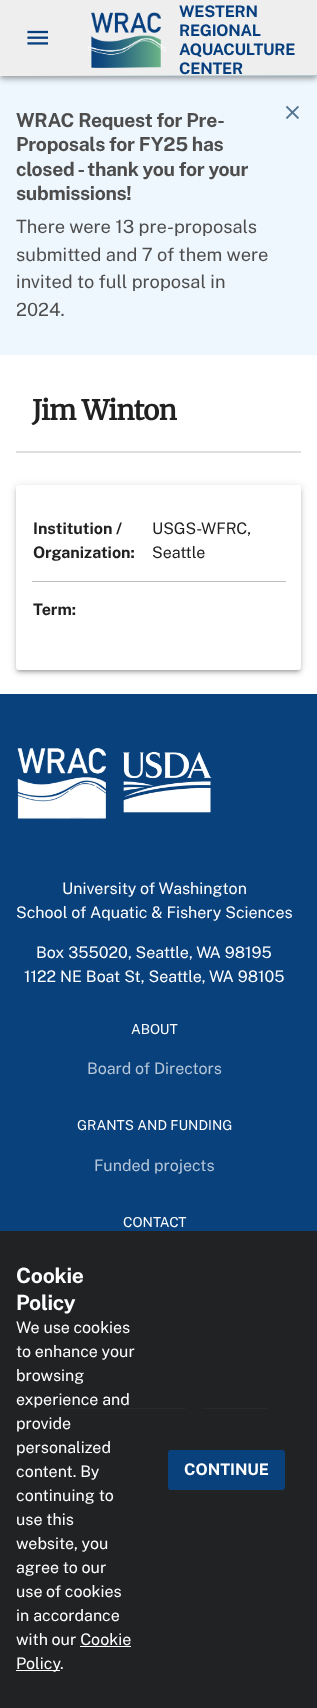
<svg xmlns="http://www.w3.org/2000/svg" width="317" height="1708">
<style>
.a{font:bold 16px Public Sans;letter-spacing:-0.25px;fill:#073f7e}
.b{font:bold 19.25px Public Sans;letter-spacing:-0.3px;fill:#4d4d4d}
.c{font:18.25px Public Sans;fill:#4d4d4d}
.d{font:bold 27.25px Merriweather;letter-spacing:-0.5px;fill:#212121}
.e{font:bold 16px Public Sans;fill:#212121}
.f{font:16px Public Sans;fill:#212121}
.g{font:16px Public Sans;fill:#fff}
.h{font:13.75px Public Sans;fill:#fff}
.i{font:16px Public Sans;fill:#b5c6d8}
.j{font:bold 21px Public Sans;letter-spacing:-0.25px;fill:#fff}
.k{font:bold 16px Public Sans;fill:#fff}
</style>
<defs>
<linearGradient id="g1" gradientUnits="userSpaceOnUse" x1="0" y1="76" x2="317" y2="75"><stop offset="0" stop-color="#f2f2f2"/><stop offset="0.07" stop-color="#eee"/><stop offset="1" stop-color="#aec7d1"/></linearGradient>
</defs>
<rect width="100%" height="100%" fill="#202224"/>
<path fill="#fff" d="M0 355h317v339H0z"/>
<path fill="#eff7fe" d="M0 76h317v279H0z"/>
<path fill="#0000001f" filter="blur(5px)" d="M0 1h317v76H0z"/>
<path fill="#00000024" filter="blur(2.5px)" d="M0 4h317v76H0z"/>
<path fill="#00000033" filter="blur(2px)" d="M1 3h315v74H1z"/>
<path fill="#eee" d="M0 0h317v75H0z"/>
<image href="1.png" x="27" y="30" width="21" height="15"/>
<image href="2.png" x="87" y="12" width="80" height="56"/>
<path fill="url(#g1)" d="M0 75h317v1H0z"/>
<image href="3.png" x="285" y="105" width="14" height="14"/>
<path fill="#e0e0e0" d="M16 451h285v2H16z"/>
<rect fill="#0000001f" filter="blur(4px)" x="16" y="486" width="285" height="185" rx="3"/>
<rect fill="#00000024" filter="blur(2px)" x="16" y="488" width="285" height="185" rx="3"/>
<rect fill="#00000033" filter="blur(1.5px)" x="18" y="490" width="281" height="181" rx="1"/>
<rect fill="#fff" x="16" y="485" width="285" height="185" rx="3"/>
<path fill="#bdbdbd" d="M32 581h254v1H32z"/>
<path fill="#09417d" d="M0 694h317v537H0z"/>
<image href="4.png" x="17" y="748" width="195" height="71"/>
<path fill="#28292a" d="M49 1408h137v1H49z"/>
<path fill="#28292a" d="M202 1408h66v1H202z"/>
<path fill="#fff" d="M80 1646h51v1H80z"/>
<path fill="#fff" d="M16 1670h44v1H16z"/>
<rect fill="#09417d" x="168" y="1450" width="117" height="40" rx="3"/>
<text class="a" x="179" y="17">WESTERN</text>
<text class="a" x="179" y="36">REGIONAL</text>
<text class="a" x="179" y="55">AQUACULTURE</text>
<text class="a" x="179" y="74">CENTER</text>
<text class="b" x="16" y="127">WRAC Request for Pre-</text>
<text class="b" x="16" y="151">Proposals for FY25 has</text>
<text class="b" x="16" y="176">closed - thank you for your</text>
<text class="b" x="16" y="200">submissions!</text>
<text class="c" x="16" y="233">There were 13 pre-proposals</text>
<text class="c" x="16" y="261">submitted and 7 of them were</text>
<text class="c" x="16" y="288">invited to full proposal in</text>
<text class="c" x="16" y="316">2024.</text>
<text class="d" x="32" y="420">Jim Winton</text>
<text class="e" x="33" y="534">Institution /</text>
<text class="e" x="33" y="558">Organization:</text>
<text class="f" x="152" y="534">USGS-WFRC,</text>
<text class="f" x="152" y="558">Seattle</text>
<text class="e" x="33" y="615">Term:</text>
<text class="g" x="62" y="894">University of Washington</text>
<text class="g" x="16" y="918">School of Aquatic &amp; Fishery Sciences</text>
<text class="g" x="36" y="958">Box 355020, Seattle, WA 98195</text>
<text class="g" x="24" y="982">1122 NE Boat St, Seattle, WA 98105</text>
<text class="h" x="131" y="1034">ABOUT</text>
<text class="i" x="87" y="1074">Board of Directors</text>
<text class="h" x="77" y="1130">GRANTS AND FUNDING</text>
<text class="i" x="94" y="1171">Funded projects</text>
<text class="h" x="123" y="1227">CONTACT</text>
<text class="j" x="16" y="1283">Cookie</text>
<text class="j" x="16" y="1310">Policy</text>
<text class="g" x="16" y="1333">We use cookies</text>
<text class="g" x="16" y="1357">to enhance your</text>
<text class="g" x="16" y="1381">browsing</text>
<text class="g" x="16" y="1405">experience and</text>
<text class="g" x="16" y="1429">provide</text>
<text class="g" x="16" y="1453">personalized</text>
<text class="g" x="16" y="1477">content. By</text>
<text class="g" x="16" y="1501">continuing to</text>
<text class="g" x="16" y="1525">use this</text>
<text class="g" x="16" y="1549">website, you</text>
<text class="g" x="16" y="1573">agree to our</text>
<text class="g" x="16" y="1597">use of cookies</text>
<text class="g" x="16" y="1621">in accordance</text>
<text class="g" x="16" y="1645">with our Cookie</text>
<text class="g" x="16" y="1669">Policy</text>
<text class="g" x="60" y="1669">.</text>
<text class="k" x="184" y="1475">CONTINUE</text>
</svg>
